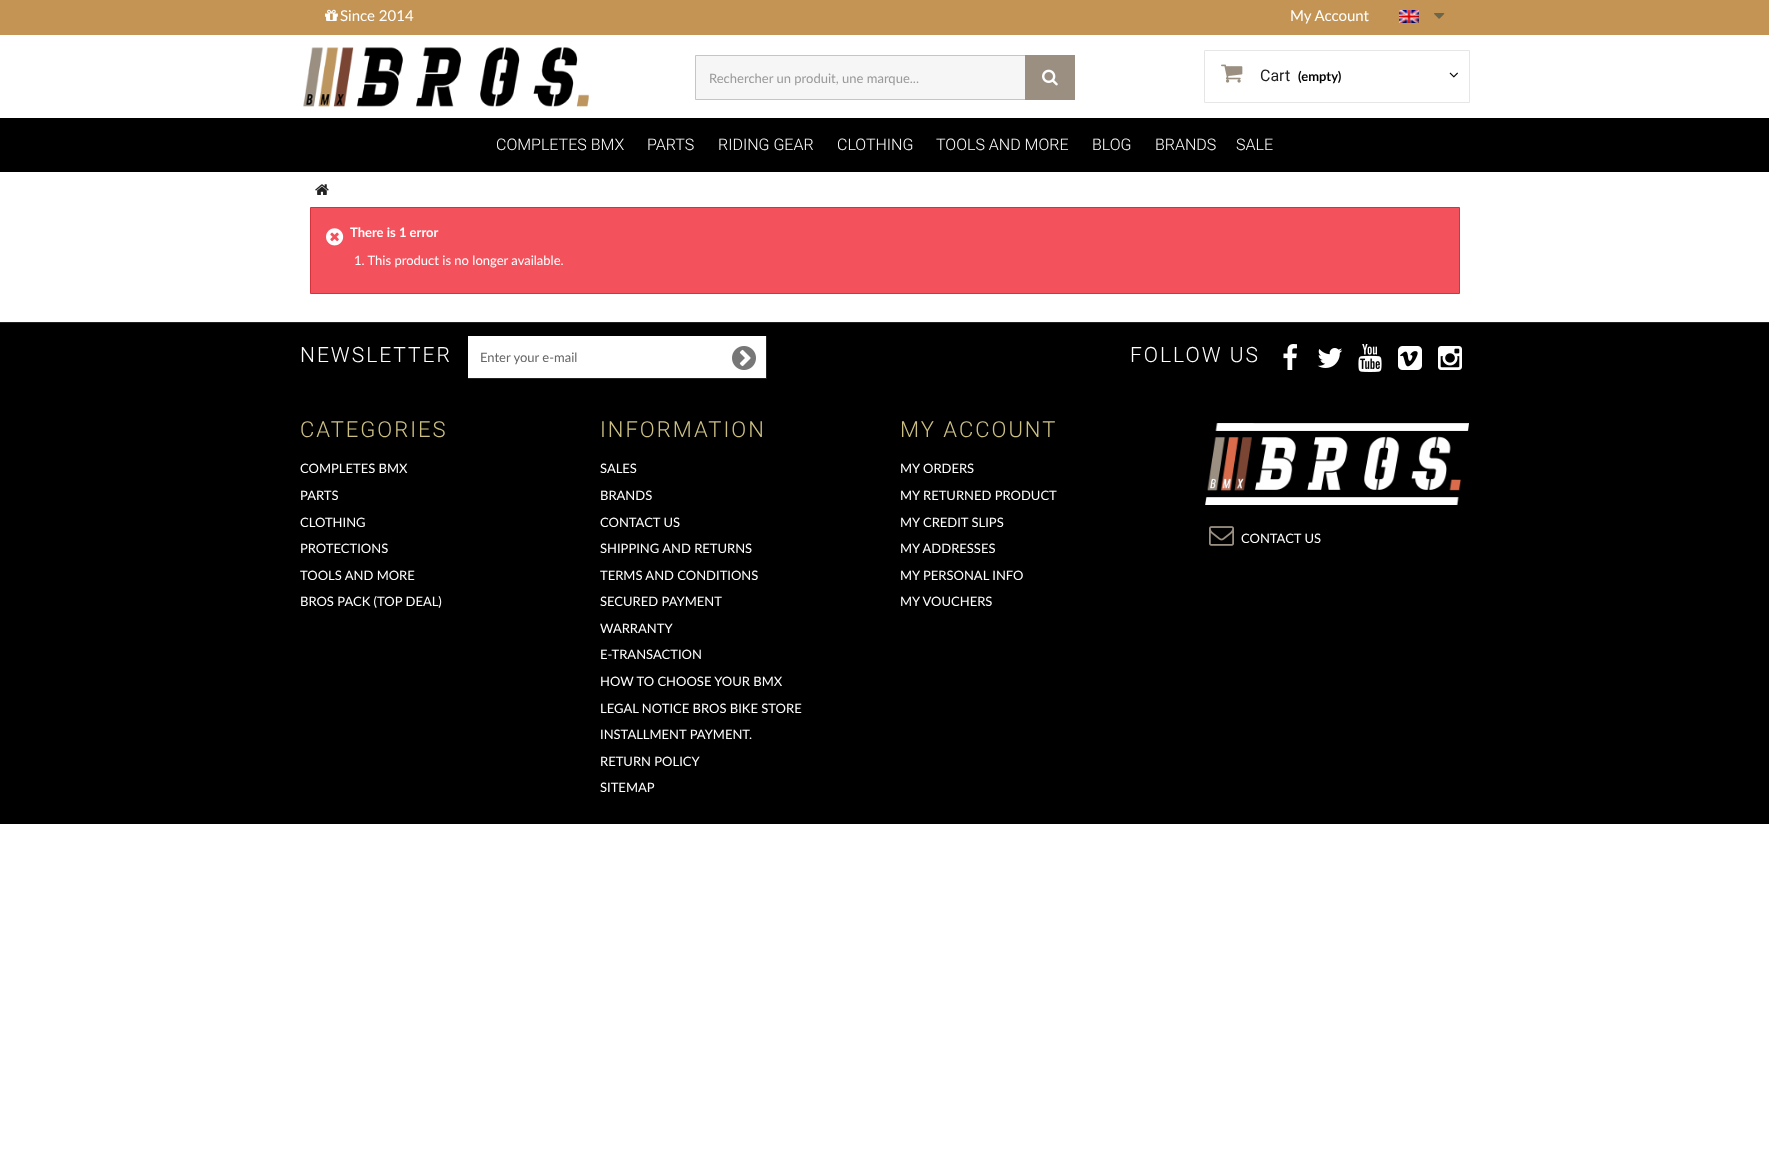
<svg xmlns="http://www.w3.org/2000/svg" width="1769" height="1155">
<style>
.a{font:15px Lato;fill:#fff}
.b{font:13px Lato;fill:#999}
.c{font:16px Roboto;fill:#222}
.d{font:bold 13px Lato;fill:#000}
.e{font:300 16px Roboto;fill:#fff}
.f{font:bold 13px Lato;fill:#fff}
.g{font:13px Lato;fill:#fff}
.h{font:300 21px Roboto;letter-spacing:2px;fill:#fff}
.i{font:13px Lato;fill:#666}
.j{font:300 22px Roboto;letter-spacing:2px;fill:#ccc084}
</style>
<rect width="100%" height="100%" fill="#fff"/>
<path fill="#c49455" d="M0 0h1769v35H0z"/>
<image href="1.png" x="325" y="9" width="13" height="12"/>
<image href="2.png" x="1399" y="10" width="20" height="13"/>
<image href="3.png" x="1434" y="13" width="11" height="6"/>
<path fill="#000" d="M0 118h1769v54H0z"/>
<path fill="#f6f6f6" d="M696 56h329v43H696z"/>
<path fill="none" stroke="#c5c5c5" d="M695.5 55.5h379v44H695.5z"/>
<path fill="#9a8f81" d="M1025 55h50v45H1025z"/>
<image href="4.png" x="1042" y="69" width="16" height="17"/>
<image href="5.png" x="303" y="47" width="286" height="60"/>
<path fill="none" stroke="#e6e6e6" d="M1204.5 50.5h265v52H1204.5z"/>
<image href="6.png" x="1221" y="64" width="22" height="19"/>
<image href="7.png" x="1449" y="72" width="9" height="6"/>
<image href="8.png" x="315" y="184" width="14" height="11"/>
<path fill="#f3515c" stroke="#d4323d" d="M310.5 207.5h1149v86H310.5z"/>
<image href="9.png" x="326" y="228" width="18" height="18"/>
<path fill="#000" d="M0 323h1769v501H0z"/>
<path fill="#222" d="M0 322h1769v1H0z"/>
<path fill="#fff" d="M468 336h298v42H468z"/>
<path fill="#222" d="M766 336h1v43H766z"/>
<path fill="#222" d="M467 378h300v1H467z"/>
<path fill="#000" d="M467 378h1v1H467z"/>
<image href="10.png" x="732" y="346" width="24" height="24"/>
<image href="11.png" x="1283" y="344" width="14" height="26"/>
<image href="12.png" x="1317" y="348" width="26" height="20"/>
<image href="13.png" x="1358" y="344" width="24" height="28"/>
<image href="14.png" x="1398" y="346" width="24" height="24"/>
<image href="15.png" x="1438" y="346" width="24" height="24"/>
<image href="16.png" x="1205" y="423" width="264" height="82"/>
<image href="17.png" x="1209" y="526" width="25" height="20"/>
<text class="a" x="340" y="21">Since 2014</text>
<text class="a" x="1290" y="21">My Account</text>
<text class="b" x="709" y="83">Rechercher un produit, une marque...</text>
<text class="c" x="1260" y="81">Cart</text>
<text class="d" x="1298" y="81">(empty)</text>
<text class="e" x="496" y="150">COMPLETES BMX</text>
<text class="e" x="647" y="150">PARTS</text>
<text class="e" x="718" y="150">RIDING GEAR</text>
<text class="e" x="837" y="150">CLOTHING</text>
<text class="e" x="936" y="150">TOOLS AND MORE</text>
<text class="e" x="1092" y="150">BLOG</text>
<text class="e" x="1155" y="150">BRANDS</text>
<text class="e" x="1236" y="150">SALE</text>
<text class="f" x="350" y="237">There is 1 error</text>
<text class="g" x="354" y="265">1. This product is no longer available.</text>
<text class="h" x="300" y="362">NEWSLETTER</text>
<text class="i" x="480" y="362">Enter your e-mail</text>
<text class="h" x="1130" y="362">FOLLOW US</text>
<text class="j" x="300" y="437">CATEGORIES</text>
<text class="g" x="300" y="473">COMPLETES BMX</text>
<text class="g" x="300" y="500">PARTS</text>
<text class="g" x="300" y="527">CLOTHING</text>
<text class="g" x="300" y="553">PROTECTIONS</text>
<text class="g" x="300" y="580">TOOLS AND MORE</text>
<text class="g" x="300" y="606">BROS PACK (TOP DEAL)</text>
<text class="j" x="600" y="437">INFORMATION</text>
<text class="g" x="600" y="473">SALES</text>
<text class="g" x="600" y="500">BRANDS</text>
<text class="g" x="600" y="527">CONTACT US</text>
<text class="g" x="600" y="553">SHIPPING AND RETURNS</text>
<text class="g" x="600" y="580">TERMS AND CONDITIONS</text>
<text class="g" x="600" y="606">SECURED PAYMENT</text>
<text class="g" x="600" y="633">WARRANTY</text>
<text class="g" x="600" y="659">E-TRANSACTION</text>
<text class="g" x="600" y="686">HOW TO CHOOSE YOUR BMX</text>
<text class="g" x="600" y="713">LEGAL NOTICE BROS BIKE STORE</text>
<text class="g" x="600" y="739">INSTALLMENT PAYMENT.</text>
<text class="g" x="600" y="766">RETURN POLICY</text>
<text class="g" x="600" y="792">SITEMAP</text>
<text class="j" x="900" y="437">MY ACCOUNT</text>
<text class="g" x="900" y="473">MY ORDERS</text>
<text class="g" x="900" y="500">MY RETURNED PRODUCT</text>
<text class="g" x="900" y="527">MY CREDIT SLIPS</text>
<text class="g" x="900" y="553">MY ADDRESSES</text>
<text class="g" x="900" y="580">MY PERSONAL INFO</text>
<text class="g" x="900" y="606">MY VOUCHERS</text>
<text class="g" x="1241" y="543">CONTACT US</text>
</svg>
